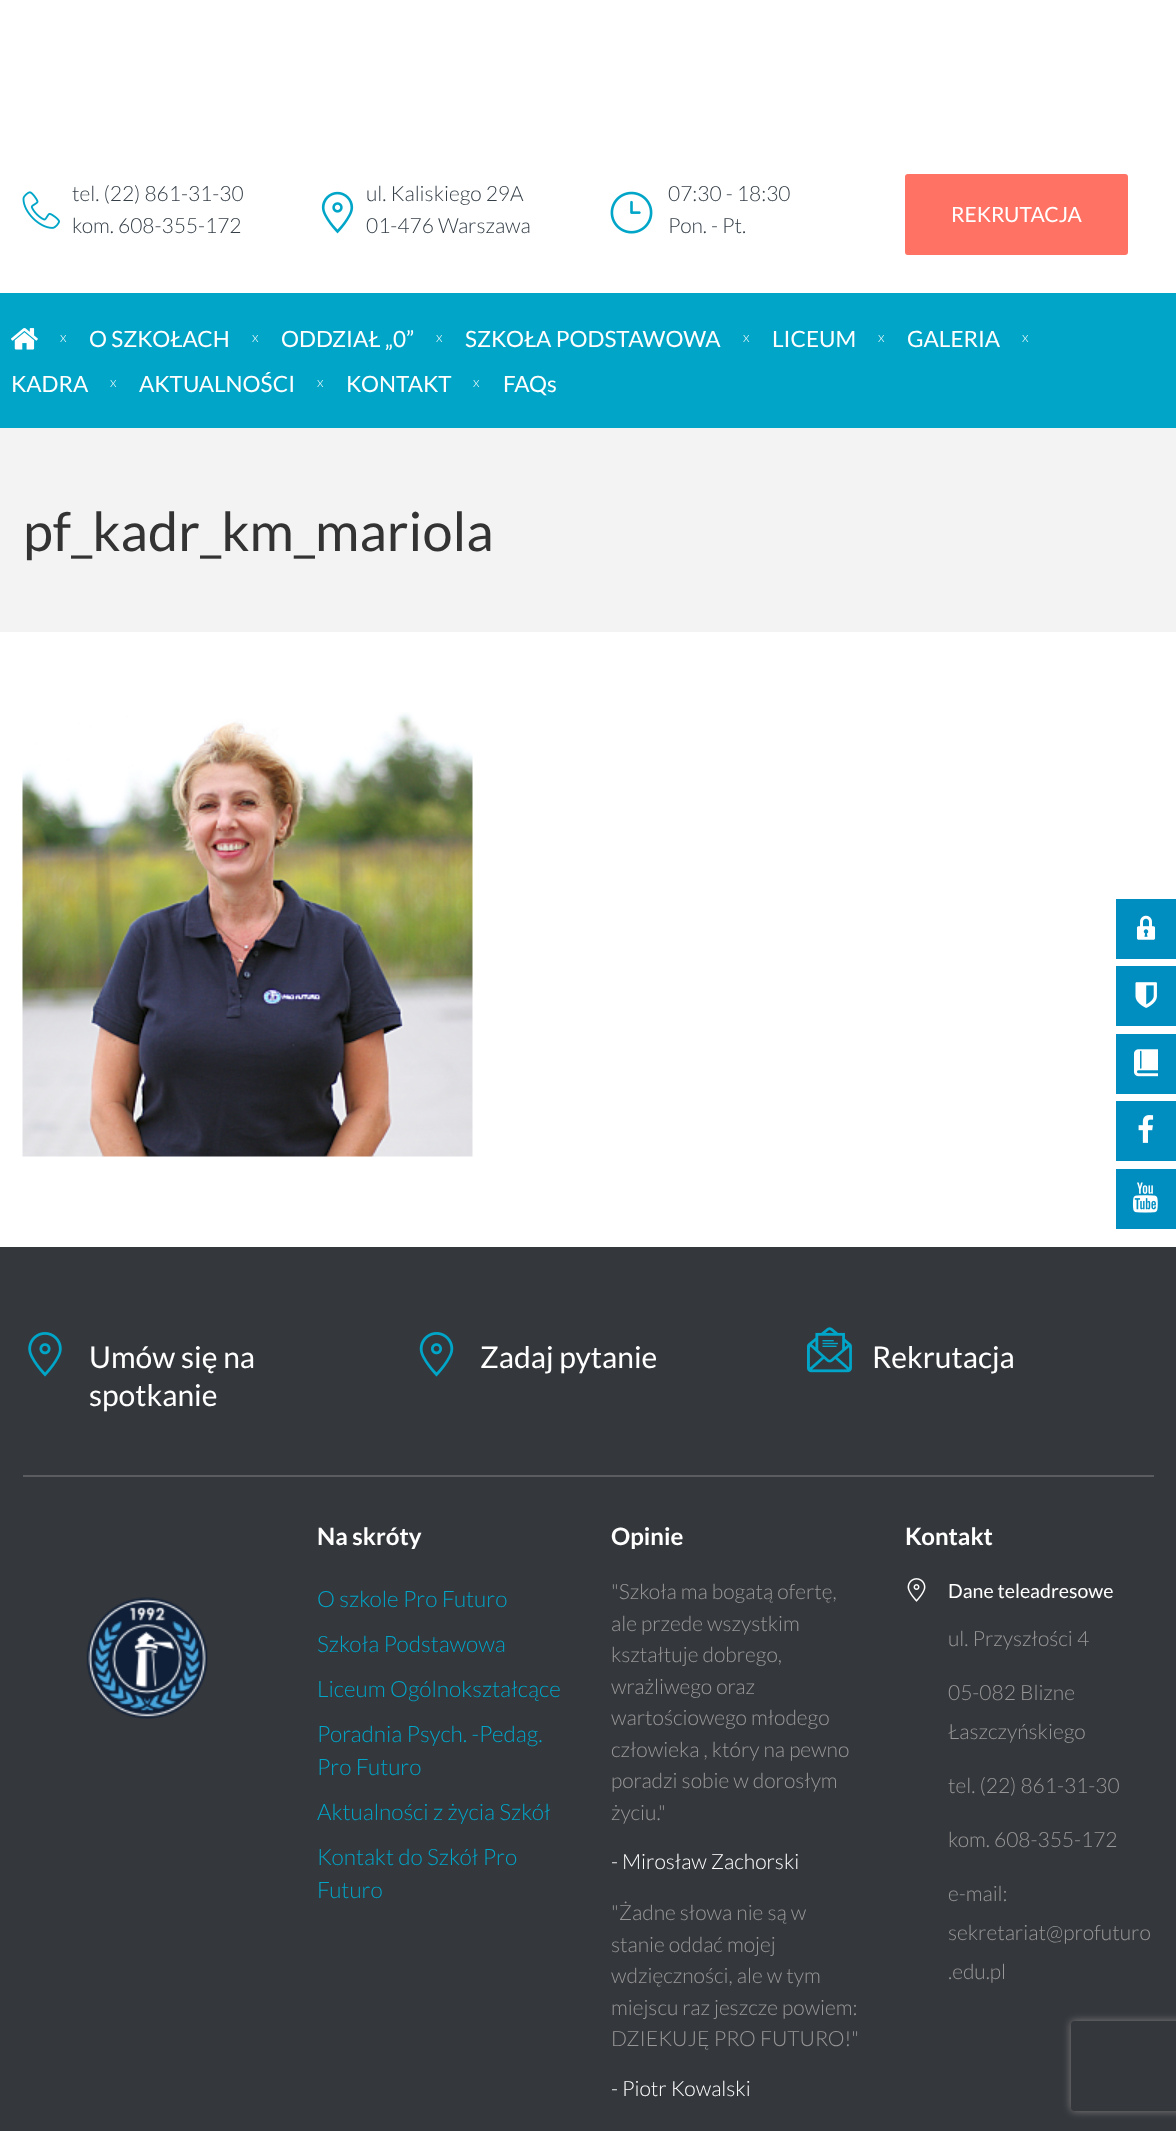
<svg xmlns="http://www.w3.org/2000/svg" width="1176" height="2131">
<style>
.a{font:300 21px Lato;fill:#343e47}
.b{font:21px Lato;fill:#fff}
.c{font:300 14px Lato;letter-spacing:2px;fill:#fff}
.d{font:22.5px Lato;fill:#fff}
.e{font:54px Lato;fill:#333}
.f{font:30px Lato;fill:#fff}
.g{font:bold 24px Lato;fill:#fff}
.h{font:300 22.5px Lato;fill:#00a5c8}
.i{font:300 21px Lato;fill:#989797}
.j{font:300 21px Lato;fill:#fff}
.k{font:19.5px Lato;fill:#fff}
</style>
<defs>
<clipPath id="clip1"><path d="M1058 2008h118v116h-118zm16 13h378c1.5 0 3 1.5 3 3v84c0 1.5-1.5 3-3 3h-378c-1.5 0-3-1.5-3-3v-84c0-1.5 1.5-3 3-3z" clip-rule="evenodd"/></clipPath>
</defs>
<rect width="100%" height="100%" fill="#fff"/>
<image href="1.png" x="22" y="191" width="38" height="38"/>
<image href="2.png" x="321" y="191" width="33" height="43"/>
<image href="3.png" x="610" y="191" width="43" height="43"/>
<rect fill="#ff7264" stroke="#ff7264" stroke-width="2" x="906" y="175" width="221" height="79" rx="2"/>
<path fill="#00a5c8" d="M0 293h1176v135H0z"/>
<image href="4.png" x="11" y="328" width="27" height="22"/>
<path fill="#f3f3f3" d="M0 428h1176v204H0z"/>
<image href="5.png" x="22" y="712" width="451" height="445"/>
<path fill="#008ec1" d="M1116 899h60v60H1116z"/>
<image href="6.png" x="1136" y="915" width="20" height="25"/>
<path fill="#008ec1" d="M1116 966h60v60H1116z"/>
<image href="7.png" x="1135" y="982" width="22" height="26"/>
<path fill="#008ec1" d="M1116 1034h60v60H1116z"/>
<image href="8.png" x="1134" y="1049" width="24" height="28"/>
<path fill="#008ec1" d="M1116 1101h60v60H1116z"/>
<image href="9.png" x="1138" y="1115" width="16" height="28"/>
<path fill="#008ec1" d="M1116 1169h60v60H1116z"/>
<image href="10.png" x="1132" y="1182" width="26" height="31"/>
<path fill="#34373c" d="M0 1247h1176v884H0z"/>
<image href="11.png" x="28" y="1332" width="34" height="45"/>
<image href="12.png" x="419" y="1332" width="35" height="45"/>
<image href="13.png" x="807" y="1327" width="45" height="46"/>
<path fill="#5a5c60" d="M23 1475h1131v2H23z"/>
<image href="14.png" x="86" y="1597" width="122" height="122"/>
<image href="15.png" x="907" y="1578" width="19" height="24"/>
<g clip-path="url(#clip1)">
<rect fill="#808080" filter="blur(4px)" x="1071" y="2021" width="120" height="90" rx="3"/>
</g>
<text class="a" x="72" y="201">tel. (22) 861-31-30</text>
<text class="a" x="72" y="233">kom. 608-355-172</text>
<text class="a" x="366" y="201">ul. Kaliskiego 29A</text>
<text class="a" x="366" y="233">01-476 Warszawa</text>
<text class="a" x="668" y="201">07:30 - 18:30</text>
<text class="a" x="668" y="233">Pon. - Pt.</text>
<text class="b" x="951" y="222">REKRUTACJA</text>
<text class="c" x="60" y="342">x</text>
<text class="d" x="89" y="347">O SZKOŁACH</text>
<text class="c" x="252" y="342">x</text>
<text class="d" x="281" y="347">ODDZIAŁ „0”</text>
<text class="c" x="436" y="342">x</text>
<text class="d" x="465" y="347">SZKOŁA PODSTAWOWA</text>
<text class="c" x="743" y="342">x</text>
<text class="d" x="772" y="347">LICEUM</text>
<text class="c" x="878" y="342">x</text>
<text class="d" x="907" y="347">GALERIA</text>
<text class="c" x="1022" y="342">x</text>
<text class="d" x="11" y="392">KADRA</text>
<text class="c" x="110" y="387">x</text>
<text class="d" x="139" y="392">AKTUALNOŚCI</text>
<text class="c" x="317" y="387">x</text>
<text class="d" x="346" y="392">KONTAKT</text>
<text class="c" x="473" y="387">x</text>
<text class="d" x="503" y="392">FAQs</text>
<text class="e" x="23" y="551">pf_kadr_km_mariola</text>
<text class="f" x="89" y="1368">Umów się na</text>
<text class="f" x="89" y="1406">spotkanie</text>
<text class="f" x="480" y="1368">Zadaj pytanie</text>
<text class="f" x="872" y="1368">Rekrutacja</text>
<text class="g" x="317" y="1545">Na skróty</text>
<text class="h" x="317" y="1607">O szkole Pro Futuro</text>
<text class="h" x="317" y="1652">Szkoła Podstawowa</text>
<text class="h" x="317" y="1697">Liceum Ogólnokształcące</text>
<text class="h" x="317" y="1742">Poradnia Psych. -Pedag.</text>
<text class="h" x="317" y="1775">Pro Futuro</text>
<text class="h" x="317" y="1820">Aktualności z życia Szkół</text>
<text class="h" x="317" y="1865">Kontakt do Szkół Pro</text>
<text class="h" x="317" y="1898">Futuro</text>
<text class="g" x="611" y="1545">Opinie</text>
<text class="i" x="611" y="1599">"Szkoła ma bogatą ofertę,</text>
<text class="i" x="611" y="1631">ale przede wszystkim</text>
<text class="i" x="611" y="1662">kształtuje dobrego,</text>
<text class="i" x="611" y="1694">wrażliwego oraz</text>
<text class="i" x="611" y="1725">wartościowego młodego</text>
<text class="i" x="611" y="1757">człowieka , który na pewno</text>
<text class="i" x="611" y="1788">poradzi sobie w dorosłym</text>
<text class="i" x="611" y="1820">życiu."</text>
<text class="j" x="611" y="1869">- Mirosław Zachorski</text>
<text class="i" x="611" y="1920">"Żadne słowa nie są w</text>
<text class="i" x="611" y="1952">stanie oddać mojej</text>
<text class="i" x="611" y="1983">wdzięczności, ale w tym</text>
<text class="i" x="611" y="2015">miejscu raz jeszcze powiem:</text>
<text class="i" x="611" y="2046">DZIEKUJĘ PRO FUTURO!"</text>
<text class="j" x="611" y="2096">- Piotr Kowalski</text>
<text class="g" x="905" y="1545">Kontakt</text>
<text class="k" x="948" y="1598">Dane teleadresowe</text>
<text class="i" x="948" y="1646">ul. Przyszłości 4</text>
<text class="i" x="948" y="1700">05-082 Blizne</text>
<text class="i" x="948" y="1739">Łaszczyńskiego</text>
<text class="i" x="948" y="1793">tel. (22) 861-31-30</text>
<text class="i" x="948" y="1847">kom. 608-355-172</text>
<text class="i" x="948" y="1901">e-mail:</text>
<text class="i" x="948" y="1940">sekretariat@profuturo</text>
<text class="i" x="948" y="1979">.edu.pl</text>
</svg>
